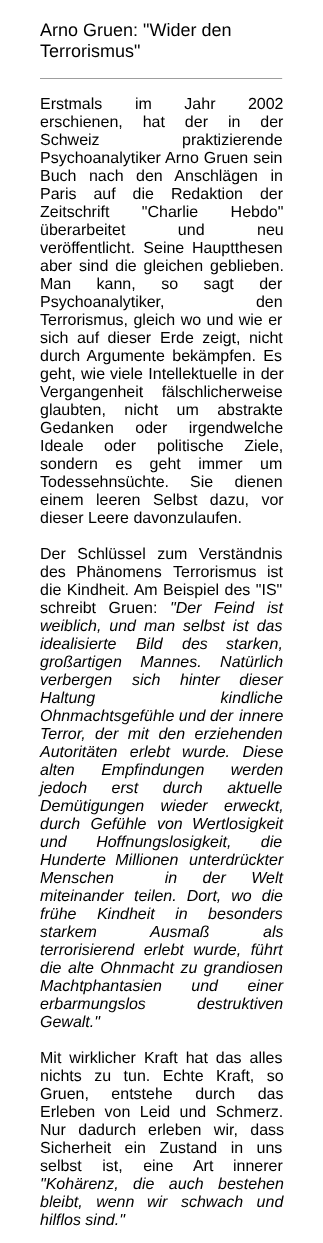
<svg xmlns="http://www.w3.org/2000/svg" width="323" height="1243">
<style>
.a{font:18px Liberation Sans;fill:#000}
.b{font:16px Liberation Sans;fill:#000}
.c{font:italic 16px Liberation Sans;fill:#000}
</style>
<rect width="100%" height="100%" fill="#fff"/>
<path fill="#9f9f9f" d="M40 78h243v1H40z"/>
<path fill="#eee" d="M282 78h1v1H282z"/>
<text class="a" x="40" y="36">Arno Gruen: "Wider den</text>
<text class="a" x="40" y="57">Terrorismus"</text>
<text class="b" x="40" y="109">Erstmals</text>
<text class="b" x="135" y="109" word-spacing="28">im Jahr 2002</text>
<text class="b" x="40" y="127" word-spacing="15.5">erschienen, hat der in der</text>
<text class="b" x="40" y="145" word-spacing="78">Schweiz praktizierende</text>
<text class="b" x="40" y="163" word-spacing="0.5">Psychoanalytiker Arno Gruen sein</text>
<text class="b" x="40" y="181" word-spacing="8">Buch nach den Anschlägen in</text>
<text class="b" x="40" y="199" word-spacing="12.5">Paris auf die Redaktion der</text>
<text class="b" x="40" y="217" word-spacing="28">Zeitschrift "Charlie Hebdo"</text>
<text class="b" x="40" y="235" word-spacing="48">überarbeitet und neu</text>
<text class="b" x="40" y="253" word-spacing="4">veröffentlicht. Seine</text>
<text class="b" x="192" y="253">Hauptthesen</text>
<text class="b" x="40" y="271" word-spacing="2.5">aber sind die gleichen geblieben.</text>
<text class="b" x="40" y="289" word-spacing="21">Man kann, so sagt der</text>
<text class="b" x="40" y="307" word-spacing="87">Psychoanalytiker, den</text>
<text class="b" x="40" y="325" word-spacing="1">Terrorismus, gleich wo und wie er</text>
<text class="b" x="40" y="343" word-spacing="4">sich auf dieser</text>
<text class="b" x="160" y="343" word-spacing="4">Erde zeigt, nicht</text>
<text class="b" x="40" y="361" word-spacing="3">durch Argumente bekämpfen. Es</text>
<text class="b" x="40" y="379" word-spacing="1">geht, wie</text>
<text class="b" x="110" y="379" word-spacing="1">viele Intellektuelle in der</text>
<text class="b" x="40" y="397" word-spacing="14">Vergangenheit fälschlicherweise</text>
<text class="b" x="40" y="415" word-spacing="14">glaubten, nicht um abstrakte</text>
<text class="b" x="40" y="433" word-spacing="17">Gedanken oder irgendwelche</text>
<text class="b" x="40" y="451" word-spacing="16">Ideale oder</text>
<text class="b" x="157" y="451" word-spacing="16">politische Ziele,</text>
<text class="b" x="40" y="469" word-spacing="13">sondern es geht immer um</text>
<text class="b" x="40" y="487">Todessehnsüchte.</text>
<text class="b" x="190" y="487" word-spacing="17">Sie dienen</text>
<text class="b" x="40" y="505" word-spacing="8">einem leeren Selbst dazu, vor</text>
<text class="b" x="40" y="523">dieser Leere davonzulaufen.</text>
<text class="b" x="40" y="559" word-spacing="7">Der Schlüssel zum Verständnis</text>
<text class="b" x="40" y="577" word-spacing="6">des Phänomens</text>
<text class="b" x="173" y="577" word-spacing="6">Terrorismus ist</text>
<text class="b" x="40" y="595" word-spacing="1">die Kindheit. Am Beispiel des "IS"</text>
<text class="b" x="40" y="613" word-spacing="8">schreibt Gruen:</text>
<text class="c" x="170" y="613">"Der</text>
<text class="c" x="214" y="613">Feind</text>
<text class="c" x="267" y="613">ist</text>
<text class="c" x="40" y="631" word-spacing="3.5">weiblich, und man selbst ist das</text>
<text class="c" x="40" y="649" word-spacing="15">idealisierte Bild des</text>
<text class="c" x="226" y="649">starken,</text>
<text class="c" x="40" y="667" word-spacing="14">großartigen Mannes. Natürlich</text>
<text class="c" x="40" y="685">verbergen</text>
<text class="c" x="132" y="685" word-spacing="15">sich hinter dieser</text>
<text class="c" x="40" y="703" word-spacing="121">Haltung kindliche</text>
<text class="c" x="40" y="721">Ohnmachtsgefühle und der</text>
<text class="c" x="239" y="721">innere</text>
<text class="c" x="40" y="739" word-spacing="5">Terror, der mit den erziehenden</text>
<text class="c" x="40" y="757" word-spacing="8">Autoritäten erlebt</text>
<text class="c" x="182" y="757" word-spacing="8">wurde. Diese</text>
<text class="c" x="40" y="775" word-spacing="22">alten Empfindungen werden</text>
<text class="c" x="40" y="793" word-spacing="20">jedoch erst durch aktuelle</text>
<text class="c" x="40" y="811" word-spacing="12">Demütigungen wieder erweckt,</text>
<text class="c" x="40" y="829" word-spacing="6">durch Gefühle von</text>
<text class="c" x="192" y="829">Wertlosigkeit</text>
<text class="c" x="40" y="847" word-spacing="25">und Hoffnungslosigkeit, die</text>
<text class="c" x="40" y="865" word-spacing="5">Hunderte Millionen</text>
<text class="c" x="189" y="865">unterdrückter</text>
<text class="c" xml:space="preserve" x="40" y="883" word-spacing="21">Menschen  in der Welt</text>
<text class="c" x="40" y="901">miteinander</text>
<text class="c" x="134" y="901" word-spacing="5.5">teilen. Dort, wo die</text>
<text class="c" x="40" y="919" word-spacing="16">frühe Kindheit in besonders</text>
<text class="c" x="40" y="937">starkem</text>
<text class="c" x="150" y="937" word-spacing="49">Ausmaß als</text>
<text class="c" x="40" y="955" word-spacing="5">terrorisierend erlebt wurde, führt</text>
<text class="c" x="40" y="973">die</text>
<text class="c" x="68" y="973" word-spacing="2">alte Ohnmacht zu grandiosen</text>
<text class="c" x="40" y="991" word-spacing="25">Machtphantasien und einer</text>
<text class="c" x="40" y="1009">erbarmungslos</text>
<text class="c" x="197" y="1009">destruktiven</text>
<text class="c" x="40" y="1027">Gewalt."</text>
<text class="b" x="40" y="1063" word-spacing="3.5">Mit wirklicher Kraft hat das alles</text>
<text class="b" x="40" y="1081" word-spacing="8">nichts zu tun. Echte Kraft, so</text>
<text class="b" x="40" y="1099" word-spacing="18">Gruen, entstehe durch das</text>
<text class="b" x="40" y="1117" word-spacing="5">Erleben von Leid und Schmerz.</text>
<text class="b" x="40" y="1135" word-spacing="8">Nur dadurch</text>
<text class="b" x="148" y="1135" word-spacing="8">erleben wir, dass</text>
<text class="b" x="40" y="1153" word-spacing="9">Sicherheit ein Zustand in uns</text>
<text class="b" x="40" y="1171" word-spacing="16">selbst ist, eine Art</text>
<text class="b" x="233" y="1171">innerer</text>
<text class="c" x="40" y="1189" word-spacing="10">"Kohärenz, die auch bestehen</text>
<text class="c" x="40" y="1207" word-spacing="9">bleibt, wenn</text>
<text class="c" x="147" y="1207" word-spacing="9">wir schwach und</text>
<text class="c" x="40" y="1225">hilflos sind."</text>
</svg>
